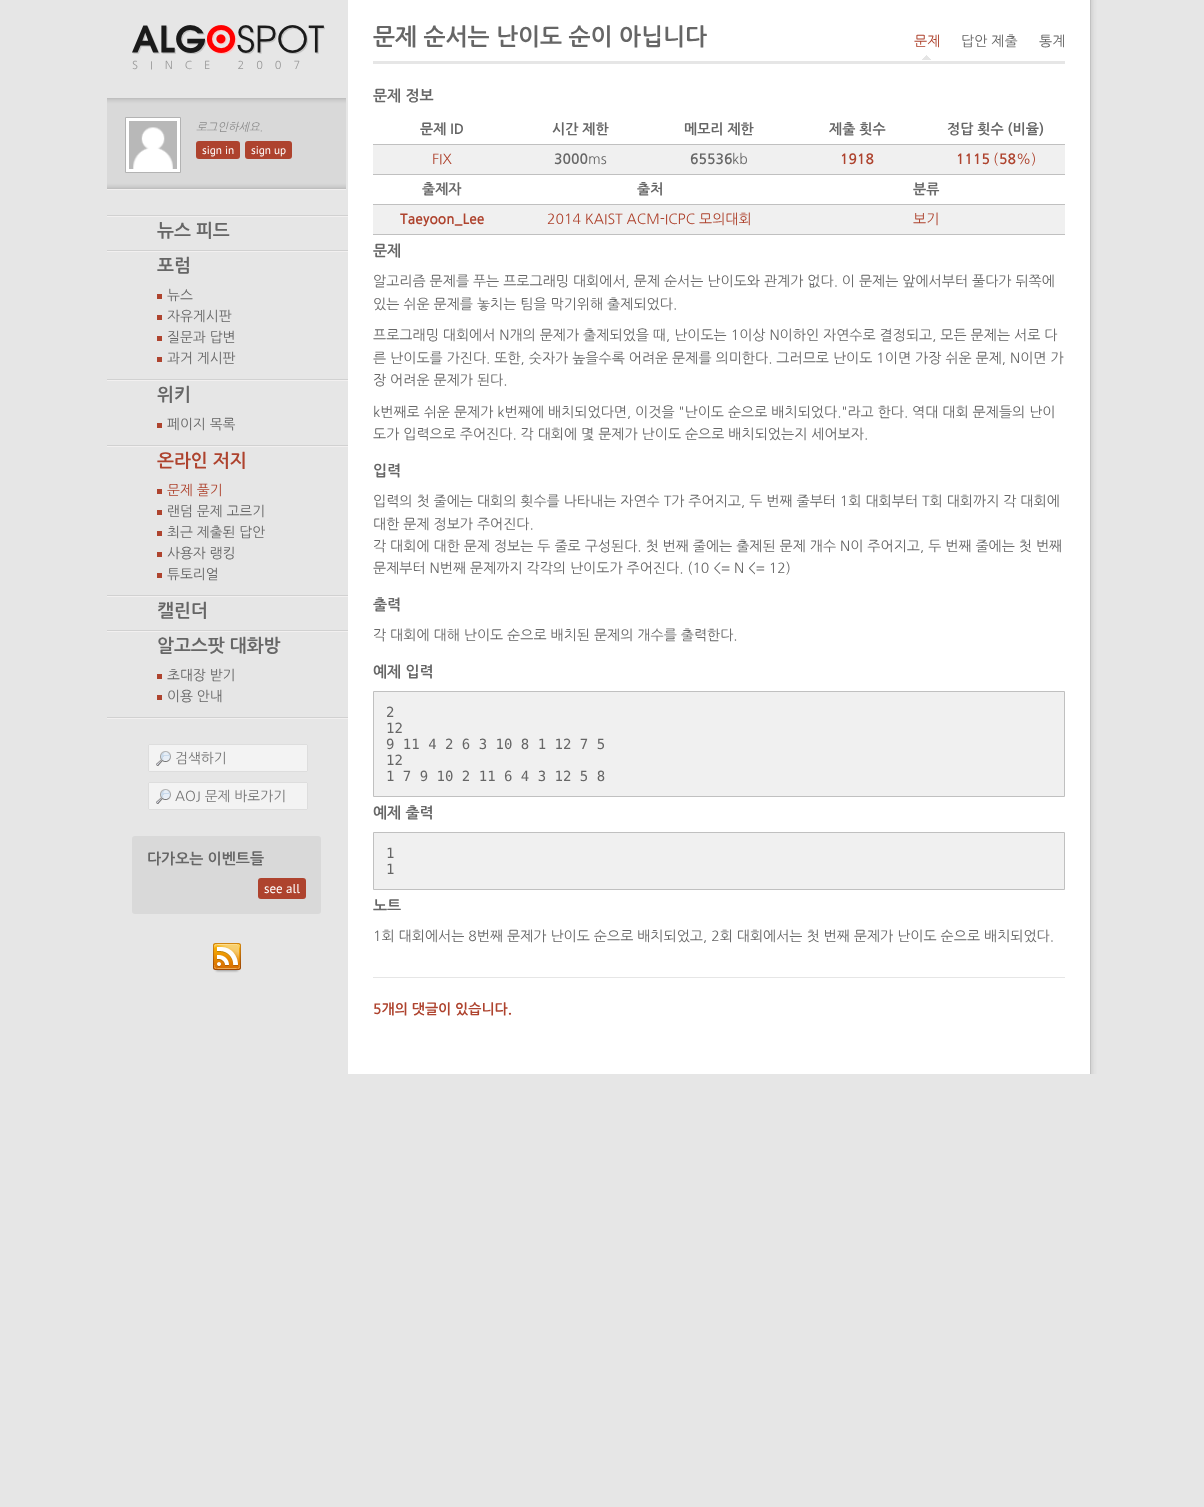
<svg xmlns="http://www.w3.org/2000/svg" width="1204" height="1507">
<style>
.a{font:11px NanumGothic;letter-spacing:12px;fill:#999}
.b{font:italic 11.25px NanumGothic;fill:#8c8c8c}
.c{font:11.25px PT Sans;fill:#fff}
.d{font:bold 18px NanumGothic;fill:#666}
.e{font:13.75px NanumGothic;fill:#666}
.f{font:bold 18px NanumGothic;fill:#ae432e}
.g{font:13.75px NanumGothic;fill:#ae432e}
.h{font:13.75px NanumGothic;fill:#757575}
.i{font:bold 15px NanumGothic;fill:#666}
.j{font:13px PT Sans;fill:#fff}
.k{font:bold 23.4px NanumGothic;fill:#666}
.l{font:14px NanumGothic;fill:#ae432e}
.m{font:14px NanumGothic;fill:#666}
.n{font:bold 14px NanumGothic;fill:#666}
.o{font:bold 14px NanumGothic;fill:#ae432e}
.p{font:14px DejaVu Sans Mono;fill:#666}
</style>
<rect width="100%" height="100%" fill="#e6e6e6"/>
<image href="1.png" x="132" y="25" width="193" height="29"/>
<path fill="#d9d9d9" d="M107 99h239v90H107z"/>
<image href="2.png" x="107" y="99" width="239" height="91"/>
<path fill="#bfbfbf" d="M107 98h239v1H107z"/>
<path fill="#fff" stroke="#b3b3b3" d="M125.5 117.5h55v55H125.5z"/>
<image href="3.png" x="129" y="121" width="48" height="48"/>
<rect fill="#ae432e" x="196" y="141" width="44" height="18" rx="3"/>
<rect fill="#ae432e" x="245" y="141" width="47" height="18" rx="3"/>
<image href="4.png" x="107" y="717" width="241" height="2"/>
<image href="4.png" x="107" y="215" width="241" height="2"/>
<image href="4.png" x="107" y="250" width="241" height="2"/>
<path fill="#ae432e" d="M157 294h5v5H157z"/>
<path fill="#ae432e" d="M157 315h5v5H157z"/>
<path fill="#ae432e" d="M157 336h5v5H157z"/>
<path fill="#ae432e" d="M157 357h5v5H157z"/>
<image href="4.png" x="107" y="379" width="241" height="2"/>
<path fill="#ae432e" d="M157 423h5v5H157z"/>
<image href="4.png" x="107" y="445" width="241" height="2"/>
<path fill="#ae432e" d="M157 489h5v5H157z"/>
<path fill="#ae432e" d="M157 510h5v5H157z"/>
<path fill="#ae432e" d="M157 531h5v5H157z"/>
<path fill="#ae432e" d="M157 552h5v5H157z"/>
<path fill="#ae432e" d="M157 573h5v5H157z"/>
<image href="4.png" x="107" y="595" width="241" height="2"/>
<image href="4.png" x="107" y="630" width="241" height="2"/>
<path fill="#ae432e" d="M157 674h5v5H157z"/>
<path fill="#ae432e" d="M157 695h5v5H157z"/>
<rect fill="#f3f3f3" x="148" y="744" width="160" height="28" rx="1"/>
<image href="5.png" x="156" y="751" width="15" height="15"/>
<rect fill="none" stroke="#ddd" x="148.5" y="744.5" width="159" height="27" rx="0.5"/>
<rect fill="#f3f3f3" x="148" y="782" width="160" height="28" rx="1"/>
<image href="5.png" x="156" y="789" width="15" height="15"/>
<rect fill="none" stroke="#ddd" x="148.5" y="782.5" width="159" height="27" rx="0.5"/>
<rect fill="#d9d9d9" x="132" y="836" width="189" height="78" rx="3"/>
<rect fill="#ae432e" x="258" y="878" width="48" height="21" rx="3"/>
<image href="6.png" x="213" y="943" width="28" height="30"/>
<path fill="#fff" d="M348 0h749v1074H348z"/>
<image href="7.png" x="1090" y="0" width="7" height="1074"/>
<path fill="#e6e6e6" d="M373 61h692v3H373z"/>
<image href="8.png" x="922" y="55" width="9" height="5"/>
<path fill="#f0f0f0" d="M373 145h692v29H373z"/>
<path fill="#c0c0c0" d="M373 144h692v1H373z"/>
<path fill="#c0c0c0" d="M373 174h692v1H373z"/>
<path fill="#f0f0f0" d="M373 205h692v29H373z"/>
<path fill="#c0c0c0" d="M373 204h692v1H373z"/>
<path fill="#c0c0c0" d="M373 234h692v1H373z"/>
<path fill="#f0f0f0" stroke="#c0c0c0" d="M373.5 691.5h691v105H373.5z"/>
<path fill="#f0f0f0" stroke="#c0c0c0" d="M373.5 832.5h691v57H373.5z"/>
<path fill="#e6e6e6" d="M373 977h692v1H373z"/>
<text class="a" x="132" y="69">SINCE 2007</text>
<text class="b" x="196" y="131">로그인하세요.</text>
<text class="c" x="202" y="154">sign in</text>
<text class="c" x="251" y="154">sign up</text>
<text class="d" x="157" y="237">뉴스 피드</text>
<text class="d" x="157" y="272">포럼</text>
<text class="e" x="167" y="300">뉴스</text>
<text class="e" x="167" y="321">자유게시판</text>
<text class="e" x="167" y="342">질문과 답변</text>
<text class="e" x="167" y="363">과거 게시판</text>
<text class="d" x="157" y="401">위키</text>
<text class="e" x="167" y="429">페이지 목록</text>
<text class="f" x="157" y="467">온라인 저지</text>
<text class="g" x="167" y="495">문제 풀기</text>
<text class="e" x="167" y="516">랜덤 문제 고르기</text>
<text class="e" x="167" y="537">최근 제출된 답안</text>
<text class="e" x="167" y="558">사용자 랭킹</text>
<text class="e" x="167" y="579">튜토리얼</text>
<text class="d" x="157" y="617">캘린더</text>
<text class="d" x="157" y="652">알고스팟 대화방</text>
<text class="e" x="167" y="680">초대장 받기</text>
<text class="e" x="167" y="701">이용 안내</text>
<text class="h" x="175" y="763">검색하기</text>
<text class="h" x="175" y="801">AOJ 문제 바로가기</text>
<text class="i" x="147" y="864">다가오는 이벤트들</text>
<text class="j" x="264" y="893">see all</text>
<text class="k" x="373" y="45">문제 순서는 난이도 순이 아닙니다</text>
<text class="l" x="914" y="46">문제</text>
<text class="m" x="961" y="46">답안 제출</text>
<text class="m" x="1039" y="46">통계</text>
<text class="i" x="373" y="101">문제 정보</text>
<text class="n" x="420" y="134">문제 ID</text>
<text class="n" x="552" y="134">시간 제한</text>
<text class="n" x="684" y="134">메모리 제한</text>
<text class="n" x="829" y="134">제출 횟수</text>
<text class="n" x="947" y="134">정답 횟수 (비율)</text>
<text class="l" x="432" y="164">FIX</text>
<text class="n" x="554" y="164">3000</text>
<text class="m" x="588" y="164">ms</text>
<text class="n" x="690" y="164">65536</text>
<text class="m" x="732" y="164">kb</text>
<text class="o" x="840" y="164">1918</text>
<text class="o" x="956" y="164">1115</text>
<text class="l" x="993" y="164">(</text>
<text class="o" x="999" y="164">58</text>
<text class="l" x="1016" y="164">%)</text>
<text class="n" x="422" y="194">출제자</text>
<text class="n" x="637" y="194">출처</text>
<text class="n" x="913" y="194">분류</text>
<text class="o" x="400" y="224">Taeyoon_Lee</text>
<text class="l" x="547" y="224">2014 KAIST ACM-ICPC 모의대회</text>
<text class="l" x="913" y="224">보기</text>
<text class="i" x="373" y="256">문제</text>
<text class="m" x="373" y="286">알고리즘 문제를 푸는 프로그래밍 대회에서, 문제 순서는 난이도와 관계가 없다. 이 문제는 앞에서부터 풀다가 뒤쪽에</text>
<text class="m" x="373" y="309">있는 쉬운 문제를 놓치는 팀을 막기위해 출제되었다.</text>
<text class="m" x="373" y="340">프로그래밍 대회에서 N개의 문제가 출제되었을 때, 난이도는 1이상 N이하인 자연수로 결정되고, 모든 문제는 서로 다</text>
<text class="m" x="373" y="363">른 난이도를 가진다. 또한, 숫자가 높을수록 어려운 문제를 의미한다. 그러므로 난이도 1이면 가장 쉬운 문제, N이면 가</text>
<text class="m" x="373" y="385">장 어려운 문제가 된다.</text>
<text class="m" x="373" y="417">k번째로 쉬운 문제가 k번째에 배치되었다면, 이것을 "난이도 순으로 배치되었다."라고 한다. 역대 대회 문제들의 난이</text>
<text class="m" x="373" y="439">도가 입력으로 주어진다. 각 대회에 몇 문제가 난이도 순으로 배치되었는지 세어보자.</text>
<text class="i" x="373" y="476">입력</text>
<text class="m" x="373" y="506">입력의 첫 줄에는 대회의 횟수를 나타내는 자연수 T가 주어지고, 두 번째 줄부터 1회 대회부터 T회 대회까지 각 대회에</text>
<text class="m" x="373" y="529">대한 문제 정보가 주어진다.</text>
<text class="m" x="373" y="551">각 대회에 대한 문제 정보는 두 줄로 구성된다. 첫 번째 줄에는 출제된 문제 개수 N이 주어지고, 두 번째 줄에는 첫 번째</text>
<text class="m" x="373" y="573">문제부터 N번째 문제까지 각각의 난이도가 주어진다. (10 &lt;= N &lt;= 12)</text>
<text class="i" x="373" y="610">출력</text>
<text class="m" x="373" y="640">각 대회에 대해 난이도 순으로 배치된 문제의 개수를 출력한다.</text>
<text class="i" x="373" y="677">예제 입력</text>
<text class="p" x="386" y="717">2</text>
<text class="p" x="386" y="733">12</text>
<text class="p" x="386" y="749">9 11 4 2 6 3 10 8 1 12 7 5</text>
<text class="p" x="386" y="765">12</text>
<text class="p" x="386" y="781">1 7 9 10 2 11 6 4 3 12 5 8</text>
<text class="i" x="373" y="818">예제 출력</text>
<text class="p" x="386" y="858">1</text>
<text class="p" x="386" y="874">1</text>
<text class="i" x="373" y="911">노트</text>
<text class="m" x="373" y="941">1회 대회에서는 8번째 문제가 난이도 순으로 배치되었고, 2회 대회에서는 첫 번째 문제가 난이도 순으로 배치되었다.</text>
<text class="o" x="373" y="1014">5개의 댓글이 있습니다.</text>
</svg>
